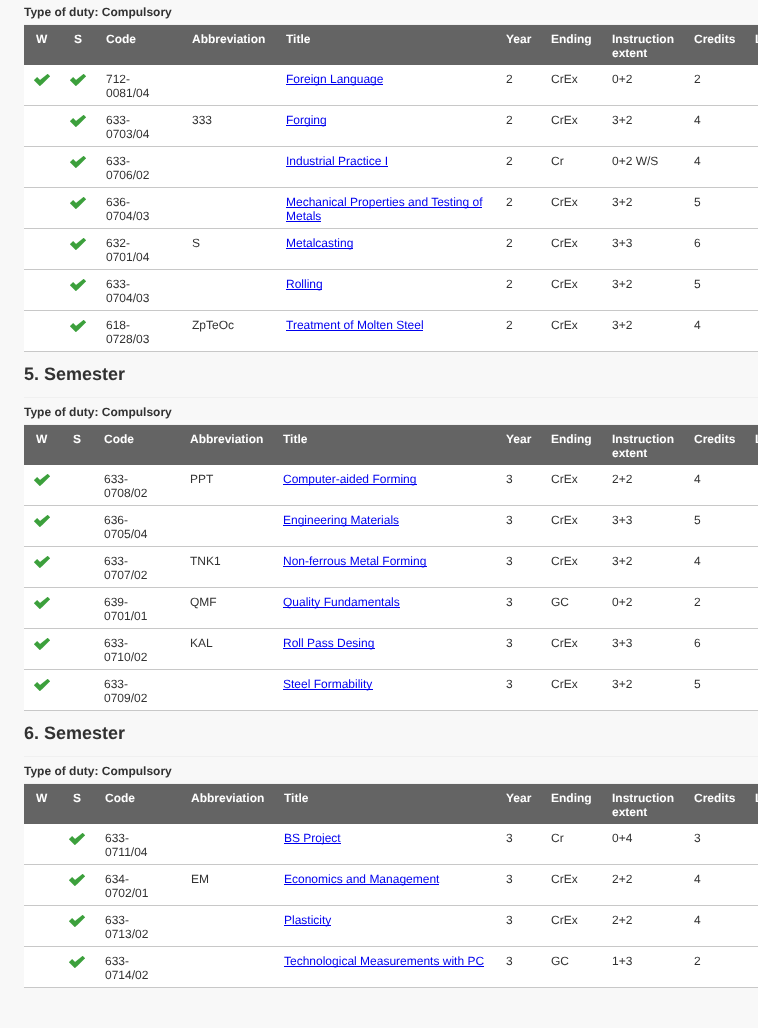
<svg xmlns="http://www.w3.org/2000/svg" width="758" height="1028">
<style>
.a{font:bold 12px Liberation Sans;fill:#323232}
.b{font:bold 12px Liberation Sans;fill:#fff}
.c{font:12px Liberation Sans;fill:#323232}
.d{font:12px Liberation Sans;fill:#00e}
.e{font:bold 18px Liberation Sans;fill:#323232}
</style>
<rect width="100%" height="100%" fill="#f8f8f8"/>
<path fill="#f0f0f0" d="M24 24h734v1H24z"/>
<path fill="#646464" d="M24 25h734v40H24z"/>
<path fill="#fff" d="M24 65h734v40H24z"/>
<image href="1.png" x="34" y="74" width="16" height="12"/>
<image href="1.png" x="70" y="74" width="16" height="12"/>
<path fill="#00e" d="M286 84h97v1H286z"/>
<path fill="#c8c8c8" d="M24 105h734v1H24z"/>
<path fill="#fff" d="M24 106h734v40H24z"/>
<image href="1.png" x="70" y="115" width="16" height="12"/>
<path fill="#00e" d="M286 125h40v1H286z"/>
<path fill="#c8c8c8" d="M24 146h734v1H24z"/>
<path fill="#fff" d="M24 147h734v40H24z"/>
<image href="1.png" x="70" y="156" width="16" height="12"/>
<path fill="#00e" d="M286 166h102v1H286z"/>
<path fill="#c8c8c8" d="M24 187h734v1H24z"/>
<path fill="#fff" d="M24 188h734v40H24z"/>
<image href="1.png" x="70" y="197" width="16" height="12"/>
<path fill="#00e" d="M286 207h196v1H286z"/>
<path fill="#00e" d="M286 221h35v1H286z"/>
<path fill="#c8c8c8" d="M24 228h734v1H24z"/>
<path fill="#fff" d="M24 229h734v40H24z"/>
<image href="1.png" x="70" y="238" width="16" height="12"/>
<path fill="#00e" d="M286 248h67v1H286z"/>
<path fill="#c8c8c8" d="M24 269h734v1H24z"/>
<path fill="#fff" d="M24 270h734v40H24z"/>
<image href="1.png" x="70" y="279" width="16" height="12"/>
<path fill="#00e" d="M286 289h36v1H286z"/>
<path fill="#c8c8c8" d="M24 310h734v1H24z"/>
<path fill="#fff" d="M24 311h734v40H24z"/>
<image href="1.png" x="70" y="320" width="16" height="12"/>
<path fill="#00e" d="M286 330h137v1H286z"/>
<path fill="#c8c8c8" d="M24 351h734v1H24z"/>
<path fill="#f0f0f0" d="M24 397h734v1H24z"/>
<path fill="#f0f0f0" d="M24 424h734v1H24z"/>
<path fill="#646464" d="M24 425h734v40H24z"/>
<path fill="#fff" d="M24 465h734v40H24z"/>
<image href="1.png" x="34" y="474" width="16" height="12"/>
<path fill="#00e" d="M283 484h134v1H283z"/>
<path fill="#c8c8c8" d="M24 505h734v1H24z"/>
<path fill="#fff" d="M24 506h734v40H24z"/>
<image href="1.png" x="34" y="515" width="16" height="12"/>
<path fill="#00e" d="M283 525h116v1H283z"/>
<path fill="#c8c8c8" d="M24 546h734v1H24z"/>
<path fill="#fff" d="M24 547h734v40H24z"/>
<image href="1.png" x="34" y="556" width="16" height="12"/>
<path fill="#00e" d="M283 566h144v1H283z"/>
<path fill="#c8c8c8" d="M24 587h734v1H24z"/>
<path fill="#fff" d="M24 588h734v40H24z"/>
<image href="1.png" x="34" y="597" width="16" height="12"/>
<path fill="#00e" d="M283 607h117v1H283z"/>
<path fill="#c8c8c8" d="M24 628h734v1H24z"/>
<path fill="#fff" d="M24 629h734v40H24z"/>
<image href="1.png" x="34" y="638" width="16" height="12"/>
<path fill="#00e" d="M283 648h92v1H283z"/>
<path fill="#c8c8c8" d="M24 669h734v1H24z"/>
<path fill="#fff" d="M24 670h734v40H24z"/>
<image href="1.png" x="34" y="679" width="16" height="12"/>
<path fill="#00e" d="M283 689h90v1H283z"/>
<path fill="#c8c8c8" d="M24 710h734v1H24z"/>
<path fill="#f0f0f0" d="M24 756h734v1H24z"/>
<path fill="#f0f0f0" d="M24 783h734v1H24z"/>
<path fill="#646464" d="M24 784h734v40H24z"/>
<path fill="#fff" d="M24 824h734v40H24z"/>
<image href="1.png" x="69" y="833" width="16" height="12"/>
<path fill="#00e" d="M284 843h57v1H284z"/>
<path fill="#c8c8c8" d="M24 864h734v1H24z"/>
<path fill="#fff" d="M24 865h734v40H24z"/>
<image href="1.png" x="69" y="874" width="16" height="12"/>
<path fill="#00e" d="M284 884h155v1H284z"/>
<path fill="#c8c8c8" d="M24 905h734v1H24z"/>
<path fill="#fff" d="M24 906h734v40H24z"/>
<image href="1.png" x="69" y="915" width="16" height="12"/>
<path fill="#00e" d="M284 925h47v1H284z"/>
<path fill="#c8c8c8" d="M24 946h734v1H24z"/>
<path fill="#fff" d="M24 947h734v40H24z"/>
<image href="1.png" x="69" y="956" width="16" height="12"/>
<path fill="#00e" d="M284 966h200v1H284z"/>
<path fill="#c8c8c8" d="M24 987h734v1H24z"/>
<text class="a" x="24" y="16">Type of duty: Compulsory</text>
<text class="b" x="36" y="43">W</text>
<text class="b" x="74" y="43">S</text>
<text class="b" x="106" y="43">Code</text>
<text class="b" x="192" y="43">Abbreviation</text>
<text class="b" x="286" y="43">Title</text>
<text class="b" x="506" y="43">Year</text>
<text class="b" x="551" y="43">Ending</text>
<text class="b" x="612" y="43">Instruction</text>
<text class="b" x="612" y="57">extent</text>
<text class="b" x="694" y="43">Credits</text>
<text class="b" x="755" y="43">L</text>
<text class="c" x="106" y="83">712-</text>
<text class="c" x="106" y="97">0081/04</text>
<text class="d" x="286" y="83">Foreign Language</text>
<text class="c" x="506" y="83">2</text>
<text class="c" x="551" y="83">CrEx</text>
<text class="c" x="612" y="83">0+2</text>
<text class="c" x="694" y="83">2</text>
<text class="c" x="106" y="124">633-</text>
<text class="c" x="106" y="138">0703/04</text>
<text class="c" x="192" y="124">333</text>
<text class="d" x="286" y="124">Forging</text>
<text class="c" x="506" y="124">2</text>
<text class="c" x="551" y="124">CrEx</text>
<text class="c" x="612" y="124">3+2</text>
<text class="c" x="694" y="124">4</text>
<text class="c" x="106" y="165">633-</text>
<text class="c" x="106" y="179">0706/02</text>
<text class="d" x="286" y="165">Industrial Practice I</text>
<text class="c" x="506" y="165">2</text>
<text class="c" x="551" y="165">Cr</text>
<text class="c" x="612" y="165">0+2 W/S</text>
<text class="c" x="694" y="165">4</text>
<text class="c" x="106" y="206">636-</text>
<text class="c" x="106" y="220">0704/03</text>
<text class="d" x="286" y="206">Mechanical Properties and Testing of</text>
<text class="d" x="286" y="220">Metals</text>
<text class="c" x="506" y="206">2</text>
<text class="c" x="551" y="206">CrEx</text>
<text class="c" x="612" y="206">3+2</text>
<text class="c" x="694" y="206">5</text>
<text class="c" x="106" y="247">632-</text>
<text class="c" x="106" y="261">0701/04</text>
<text class="c" x="192" y="247">S</text>
<text class="d" x="286" y="247">Metalcasting</text>
<text class="c" x="506" y="247">2</text>
<text class="c" x="551" y="247">CrEx</text>
<text class="c" x="612" y="247">3+3</text>
<text class="c" x="694" y="247">6</text>
<text class="c" x="106" y="288">633-</text>
<text class="c" x="106" y="302">0704/03</text>
<text class="d" x="286" y="288">Rolling</text>
<text class="c" x="506" y="288">2</text>
<text class="c" x="551" y="288">CrEx</text>
<text class="c" x="612" y="288">3+2</text>
<text class="c" x="694" y="288">5</text>
<text class="c" x="106" y="329">618-</text>
<text class="c" x="106" y="343">0728/03</text>
<text class="c" x="192" y="329">ZpTeOc</text>
<text class="d" x="286" y="329">Treatment of Molten Steel</text>
<text class="c" x="506" y="329">2</text>
<text class="c" x="551" y="329">CrEx</text>
<text class="c" x="612" y="329">3+2</text>
<text class="c" x="694" y="329">4</text>
<text class="e" x="24" y="380">5. Semester</text>
<text class="a" x="24" y="416">Type of duty: Compulsory</text>
<text class="b" x="36" y="443">W</text>
<text class="b" x="73" y="443">S</text>
<text class="b" x="104" y="443">Code</text>
<text class="b" x="190" y="443">Abbreviation</text>
<text class="b" x="283" y="443">Title</text>
<text class="b" x="506" y="443">Year</text>
<text class="b" x="551" y="443">Ending</text>
<text class="b" x="612" y="443">Instruction</text>
<text class="b" x="612" y="457">extent</text>
<text class="b" x="694" y="443">Credits</text>
<text class="b" x="755" y="443">L</text>
<text class="c" x="104" y="483">633-</text>
<text class="c" x="104" y="497">0708/02</text>
<text class="c" x="190" y="483">PPT</text>
<text class="d" x="283" y="483">Computer-aided Forming</text>
<text class="c" x="506" y="483">3</text>
<text class="c" x="551" y="483">CrEx</text>
<text class="c" x="612" y="483">2+2</text>
<text class="c" x="694" y="483">4</text>
<text class="c" x="104" y="524">636-</text>
<text class="c" x="104" y="538">0705/04</text>
<text class="d" x="283" y="524">Engineering Materials</text>
<text class="c" x="506" y="524">3</text>
<text class="c" x="551" y="524">CrEx</text>
<text class="c" x="612" y="524">3+3</text>
<text class="c" x="694" y="524">5</text>
<text class="c" x="104" y="565">633-</text>
<text class="c" x="104" y="579">0707/02</text>
<text class="c" x="190" y="565">TNK1</text>
<text class="d" x="283" y="565">Non-ferrous Metal Forming</text>
<text class="c" x="506" y="565">3</text>
<text class="c" x="551" y="565">CrEx</text>
<text class="c" x="612" y="565">3+2</text>
<text class="c" x="694" y="565">4</text>
<text class="c" x="104" y="606">639-</text>
<text class="c" x="104" y="620">0701/01</text>
<text class="c" x="190" y="606">QMF</text>
<text class="d" x="283" y="606">Quality Fundamentals</text>
<text class="c" x="506" y="606">3</text>
<text class="c" x="551" y="606">GC</text>
<text class="c" x="612" y="606">0+2</text>
<text class="c" x="694" y="606">2</text>
<text class="c" x="104" y="647">633-</text>
<text class="c" x="104" y="661">0710/02</text>
<text class="c" x="190" y="647">KAL</text>
<text class="d" x="283" y="647">Roll Pass Desing</text>
<text class="c" x="506" y="647">3</text>
<text class="c" x="551" y="647">CrEx</text>
<text class="c" x="612" y="647">3+3</text>
<text class="c" x="694" y="647">6</text>
<text class="c" x="104" y="688">633-</text>
<text class="c" x="104" y="702">0709/02</text>
<text class="d" x="283" y="688">Steel Formability</text>
<text class="c" x="506" y="688">3</text>
<text class="c" x="551" y="688">CrEx</text>
<text class="c" x="612" y="688">3+2</text>
<text class="c" x="694" y="688">5</text>
<text class="e" x="24" y="739">6. Semester</text>
<text class="a" x="24" y="775">Type of duty: Compulsory</text>
<text class="b" x="36" y="802">W</text>
<text class="b" x="73" y="802">S</text>
<text class="b" x="105" y="802">Code</text>
<text class="b" x="191" y="802">Abbreviation</text>
<text class="b" x="284" y="802">Title</text>
<text class="b" x="506" y="802">Year</text>
<text class="b" x="551" y="802">Ending</text>
<text class="b" x="612" y="802">Instruction</text>
<text class="b" x="612" y="816">extent</text>
<text class="b" x="694" y="802">Credits</text>
<text class="b" x="755" y="802">L</text>
<text class="c" x="105" y="842">633-</text>
<text class="c" x="105" y="856">0711/04</text>
<text class="d" x="284" y="842">BS Project</text>
<text class="c" x="506" y="842">3</text>
<text class="c" x="551" y="842">Cr</text>
<text class="c" x="612" y="842">0+4</text>
<text class="c" x="694" y="842">3</text>
<text class="c" x="105" y="883">634-</text>
<text class="c" x="105" y="897">0702/01</text>
<text class="c" x="191" y="883">EM</text>
<text class="d" x="284" y="883">Economics and Management</text>
<text class="c" x="506" y="883">3</text>
<text class="c" x="551" y="883">CrEx</text>
<text class="c" x="612" y="883">2+2</text>
<text class="c" x="694" y="883">4</text>
<text class="c" x="105" y="924">633-</text>
<text class="c" x="105" y="938">0713/02</text>
<text class="d" x="284" y="924">Plasticity</text>
<text class="c" x="506" y="924">3</text>
<text class="c" x="551" y="924">CrEx</text>
<text class="c" x="612" y="924">2+2</text>
<text class="c" x="694" y="924">4</text>
<text class="c" x="105" y="965">633-</text>
<text class="c" x="105" y="979">0714/02</text>
<text class="d" x="284" y="965">Technological Measurements with PC</text>
<text class="c" x="506" y="965">3</text>
<text class="c" x="551" y="965">GC</text>
<text class="c" x="612" y="965">1+3</text>
<text class="c" x="694" y="965">2</text>
</svg>
